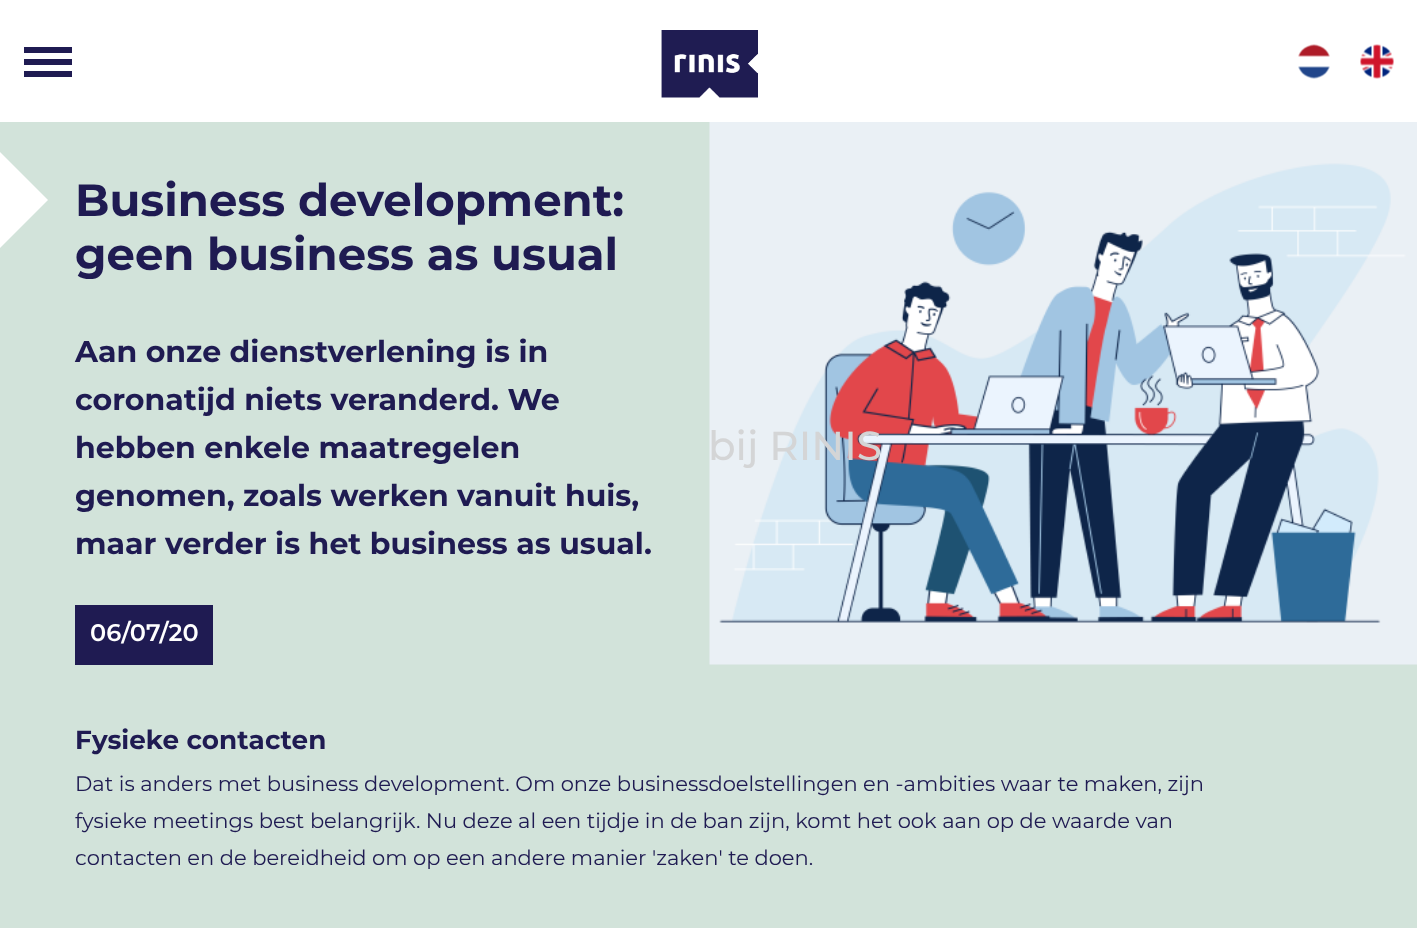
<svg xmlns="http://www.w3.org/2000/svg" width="1417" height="928">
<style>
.a{font:100 45px Montserrat;fill:#1f1b52}
.b{font:100 30px Montserrat;fill:#1f1b52}
.c{font:100 24px 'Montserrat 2';fill:#fff}
.d{font:100 26.25px Montserrat;fill:#1f1b52}
.e{font:100 21px 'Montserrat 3';fill:#1f1b52}
.f{font:100 40.5px 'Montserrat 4';fill:#d4d5d6}
</style>
<rect width="100%" height="100%" fill="#d2e3da"/>
<path fill="#fff" d="M0 248v-96l48 48z"/>
<path fill="#1f1b52" d="M75 605h138v60H75z"/>
<image href="1.png" x="709" y="122" width="708" height="543"/>
<path fill="#fff" d="M0 0h1417v122H0z"/>
<path fill="#1f1b52" d="M24 47h48v6H24z"/>
<path fill="#1f1b52" d="M24 59h48v6H24z"/>
<path fill="#1f1b52" d="M24 71h48v6H24z"/>
<image href="2.png" x="661" y="30" width="97" height="68"/>
<image href="3.png" x="1298" y="44" width="32" height="35"/>
<image href="4.png" x="1360" y="44" width="34" height="35"/>
<text class="a" x="75" y="216">Business development:</text>
<text class="a" x="75" y="270">geen business as usual</text>
<text class="b" x="75" y="362">Aan onze dienstverlening is in</text>
<text class="b" x="75" y="410">coronatijd niets veranderd. We</text>
<text class="b" x="75" y="458">hebben enkele maatregelen</text>
<text class="b" x="75" y="506">genomen, zoals werken vanuit huis,</text>
<text class="b" x="75" y="554">maar verder is het business as usual.</text>
<text class="c" x="90" y="641">06/07/20</text>
<text class="d" x="75" y="749">Fysieke contacten</text>
<text class="e" x="75" y="791">Dat is anders met business development. Om onze businessdoelstellingen en -ambities waar te maken, zijn</text>
<text class="e" x="75" y="828">fysieke meetings best belangrijk. Nu deze al een tijdje in de ban zijn, komt het ook aan op de waarde van</text>
<text class="e" x="75" y="865">contacten en de bereidheid om op een andere manier 'zaken' te doen.</text>
<text class="f" x="708" y="460">bij RINIS</text>
</svg>
